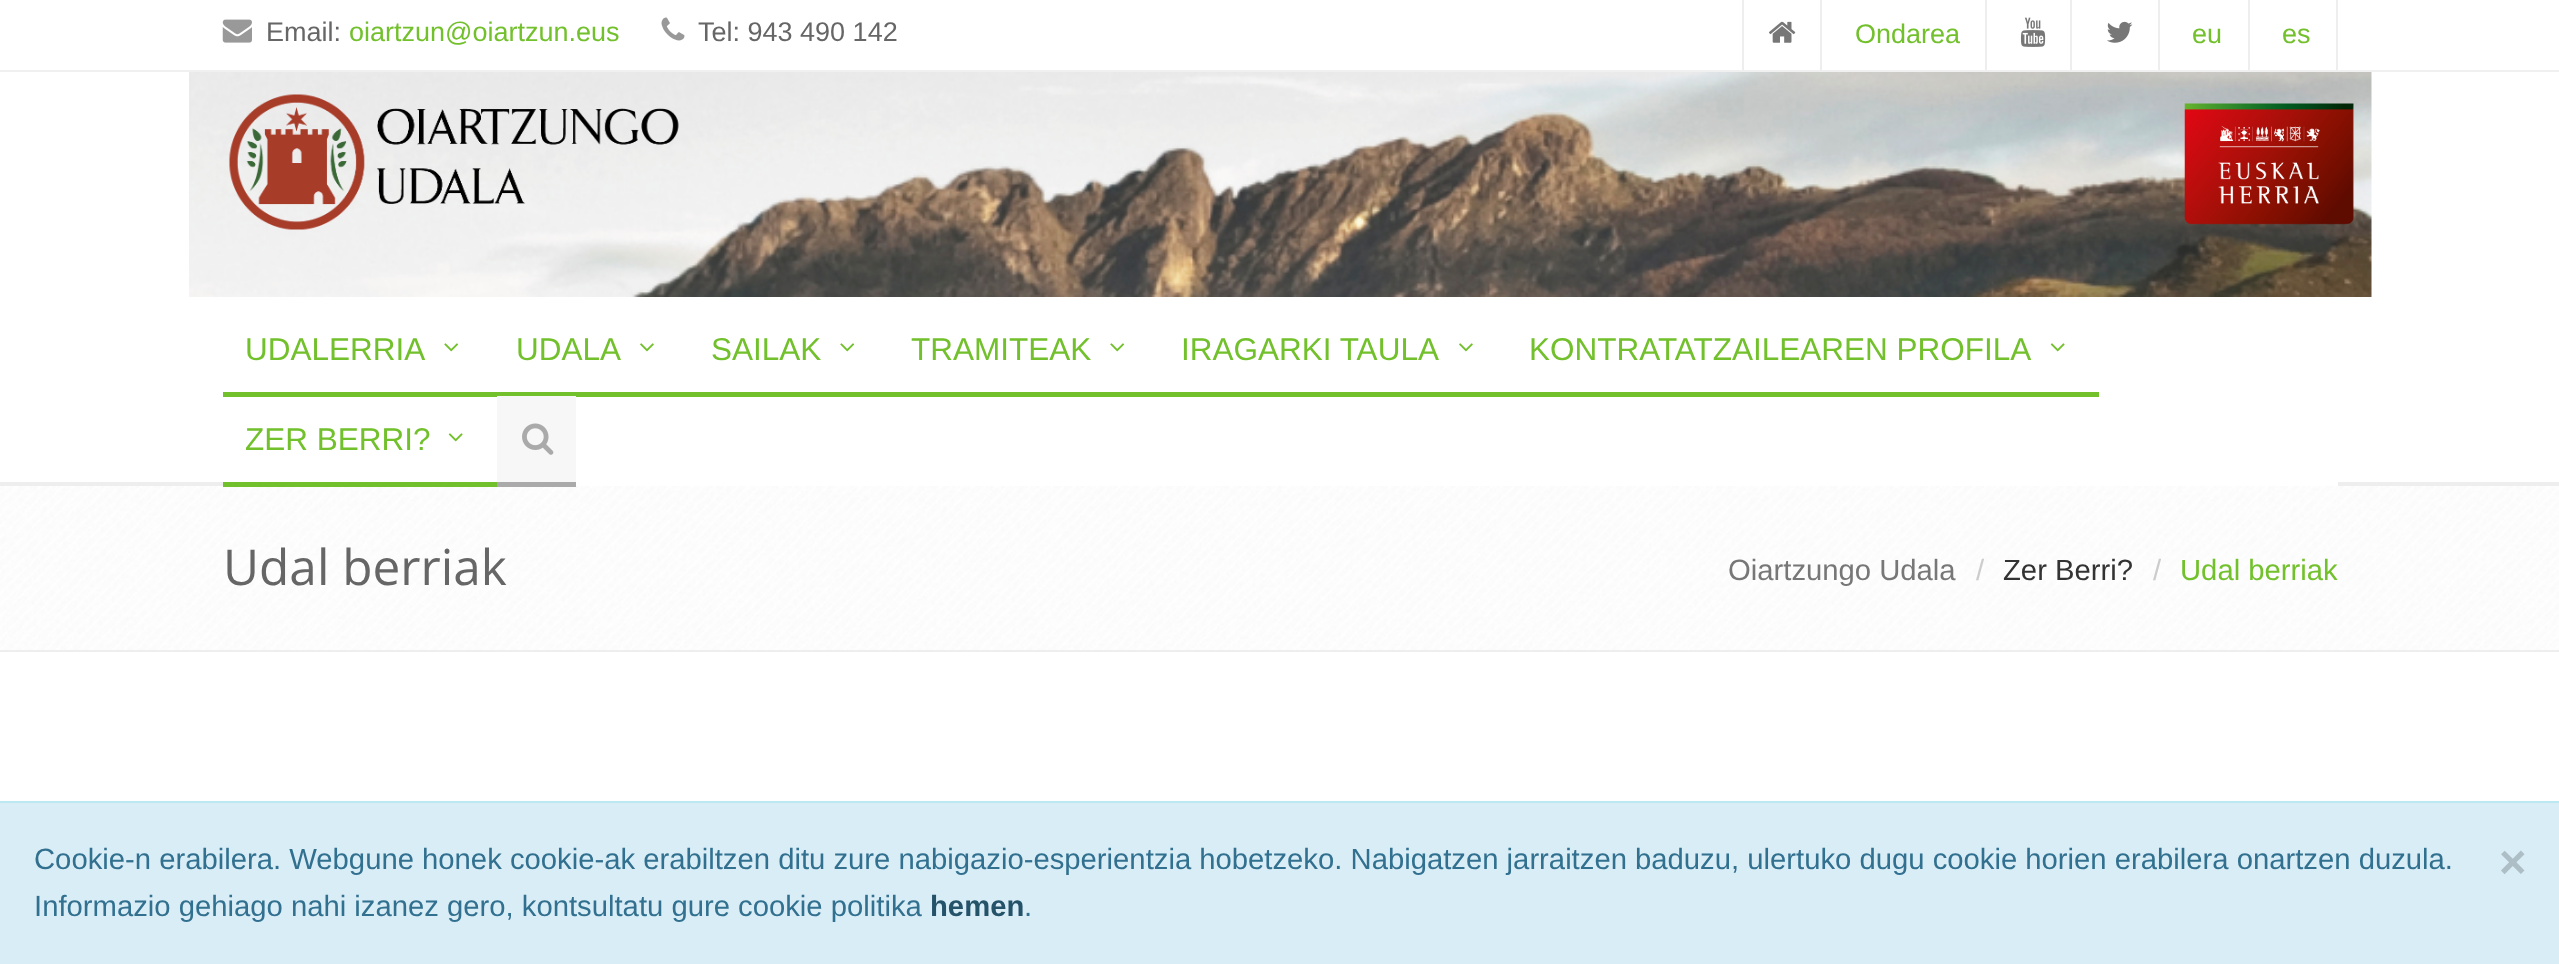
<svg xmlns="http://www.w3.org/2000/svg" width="2559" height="964">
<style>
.a{font:27px Liberation Sans;fill:#666}
.b{font:27px Liberation Sans;fill:#72c02c}
.c{font:31.5px Liberation Sans;fill:#72c02c}
.d{font:49.5px Open Sans;fill:#666}
.e{font:29.25px Liberation Sans;fill:#777}
.f{font:29.25px Liberation Sans;fill:#ccc}
.g{font:29.25px Liberation Sans;fill:#333}
.h{font:29.25px Liberation Sans;fill:#72c02c}
.i{font:29.25px Liberation Sans;fill:#31708f}
.j{font:bold 47px Liberation Sans;fill:#aebec6}
.k{font:bold 29.25px Liberation Sans;fill:#245269}
</style>
<rect width="100%" height="100%" fill="#fff"/>
<path fill="#eee" d="M0 482h2559v4H0z"/>
<path fill="#f0f0f0" d="M0 70h2559v2H0z"/>
<image href="1.png" x="222" y="19" width="30" height="24"/>
<image href="2.png" x="661" y="17" width="24" height="24"/>
<path fill="#eee" d="M1820 0h2v70H1820z"/>
<path fill="#eee" d="M1742 0h2v70H1742z"/>
<image href="3.png" x="1769" y="21" width="27" height="22"/>
<path fill="#eee" d="M1985 0h2v70H1985z"/>
<path fill="#eee" d="M2070 0h2v70H2070z"/>
<image href="4.png" x="2020" y="17" width="26" height="30"/>
<path fill="#eee" d="M2158 0h2v70H2158z"/>
<image href="5.png" x="2107" y="21" width="26" height="22"/>
<path fill="#eee" d="M2248 0h2v70H2248z"/>
<path fill="#eee" d="M2336 0h2v70H2336z"/>
<image href="6.png" x="189" y="72" width="2183" height="225"/>
<image href="7.png" x="229" y="94" width="450" height="136"/>
<image href="8.png" x="2184" y="103" width="170" height="122"/>
<path fill="#fff" d="M223 482h2115v4H223z"/>
<path fill="#72c02c" d="M223 392h1876v5H223z"/>
<image href="9.png" x="444" y="343" width="15" height="9"/>
<image href="10.png" x="640" y="343" width="14" height="9"/>
<image href="9.png" x="840" y="343" width="15" height="9"/>
<image href="9.png" x="1110" y="343" width="15" height="9"/>
<image href="10.png" x="1459" y="343" width="14" height="9"/>
<image href="11.png" x="2050" y="343" width="15" height="9"/>
<image href="13.png" x="0" y="486" width="2559" height="164"/>
<path fill="#72c02c" d="M223 482h274v5H223z"/>
<image href="11.png" x="448" y="433" width="15" height="9"/>
<path fill="#f7f7f7" d="M497 396h79v86H497z"/>
<path fill="#aaa" d="M497 482h79v5H497z"/>
<image href="12.png" x="522" y="423" width="32" height="32"/>
<path fill="#eee" d="M0 650h2559v2H0z"/>
<path fill="#d9edf7" d="M0 803h2559v161H0z"/>
<path fill="#bce8f1" d="M0 801h2559v2H0z"/>
<text class="a" x="266" y="41">Email:</text>
<text class="b" x="349" y="41">oiartzun@oiartzun.eus</text>
<text class="a" x="698" y="41">Tel: 943 490 142</text>
<text class="b" x="1855" y="43">Ondarea</text>
<text class="b" x="2192" y="43">eu</text>
<text class="b" x="2282" y="43">es</text>
<text class="c" x="245" y="360">UDALERRIA</text>
<text class="c" x="516" y="360">UDALA</text>
<text class="c" x="711" y="360">SAILAK</text>
<text class="c" x="911" y="360">TRAMITEAK</text>
<text class="c" x="1181" y="360">IRAGARKI TAULA</text>
<text class="c" x="1529" y="360">KONTRATATZAILEAREN PROFILA</text>
<text class="c" x="245" y="450">ZER BERRI?</text>
<text class="d" x="223" y="585">Udal berriak</text>
<text class="e" x="1728" y="580">Oiartzungo Udala</text>
<text class="f" x="1976" y="580">/</text>
<text class="g" x="2003" y="580">Zer Berri?</text>
<text class="f" x="2153" y="580">/</text>
<text class="h" x="2180" y="580">Udal berriak</text>
<text class="i" x="34" y="869">Cookie-n erabilera. Webgune honek cookie-ak erabiltzen ditu zure nabigazio-esperientzia hobetzeko. Nabigatzen jarraitzen baduzu, ulertuko dugu cookie horien erabilera onartzen duzula.</text>
<text class="j" x="2499" y="878">×</text>
<text class="i" x="34" y="916">Informazio gehiago nahi izanez gero, kontsultatu gure cookie politika</text>
<text class="k" x="930" y="916">hemen</text>
<text class="i" x="1024" y="916">.</text>
</svg>
